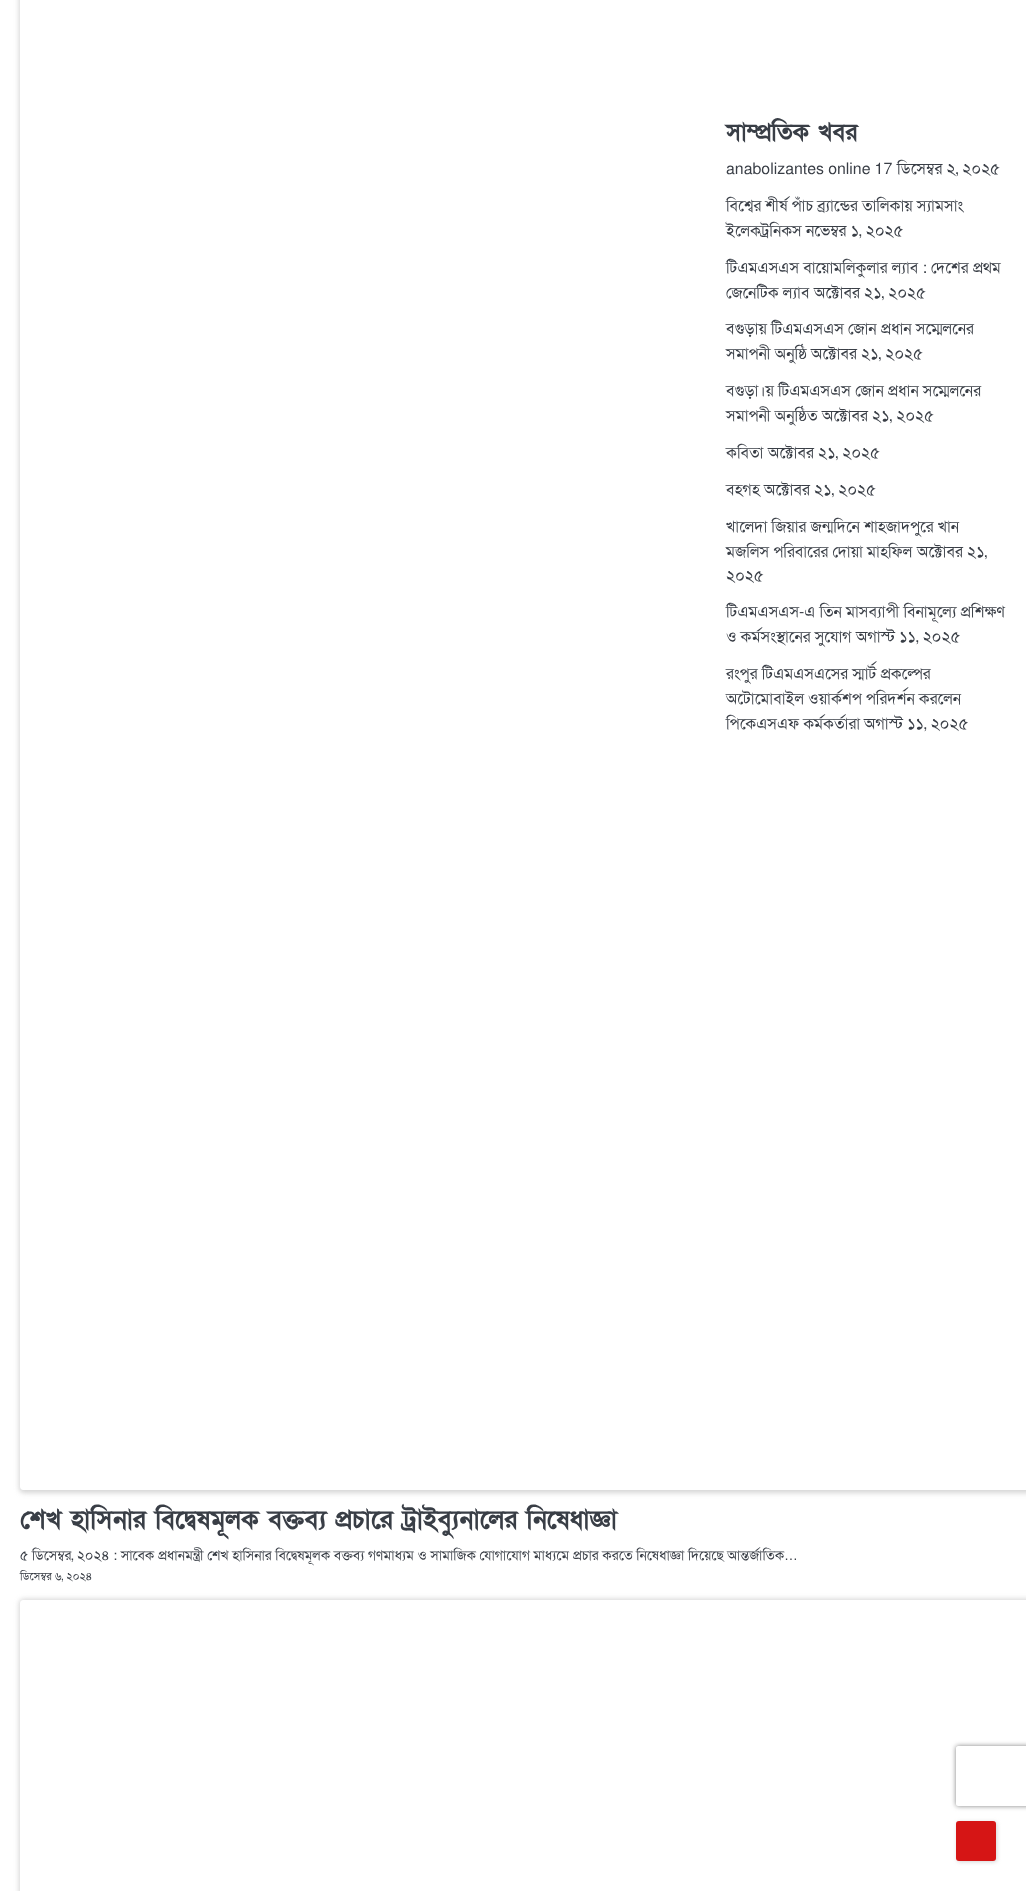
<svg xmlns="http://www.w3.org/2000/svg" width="1026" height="1891">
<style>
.a{font:bold 24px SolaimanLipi;fill:#393e46}
.b{font:15.9px SolaimanLipi;fill:#393e46}
.c{font:16px SolaimanLipi;fill:#393e46}
.d{font:bold 25.9px SolaimanLipi;fill:#393e46}
.e{font:13.9px SolaimanLipi;fill:#393e46}
.f{font:13.9px Liberation Sans;fill:#393e46}
.g{font:11.25px SolaimanLipi;fill:#393e46}
</style>
<defs>
<clipPath id="clip1"><path d="M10 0h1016v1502h-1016zm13-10h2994c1.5 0 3 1.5 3 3v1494c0 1.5-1.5 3-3 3h-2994c-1.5 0-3-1.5-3-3v-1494c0-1.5 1.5-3 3-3z" clip-rule="evenodd"/></clipPath>
<clipPath id="clip2"><path d="M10 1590h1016v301h-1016zm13 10h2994c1.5 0 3 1.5 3 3v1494c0 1.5-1.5 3-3 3h-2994c-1.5 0-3-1.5-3-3v-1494c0-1.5 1.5-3 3-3z" clip-rule="evenodd"/></clipPath>
<clipPath id="clip3"><path d="M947 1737h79v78h-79zm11 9h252c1 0 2 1 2 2v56c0 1-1 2-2 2h-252c-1 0-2-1-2-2v-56c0-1 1-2 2-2z" clip-rule="evenodd"/></clipPath>
</defs>
<rect width="100%" height="100%" fill="#fff"/>
<g clip-path="url(#clip1)">
<rect fill="#91919161" filter="blur(2.5px)" x="19" y="-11" width="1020" height="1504" rx="5"/>
</g>
<g clip-path="url(#clip2)">
<rect fill="#91919161" filter="blur(2.5px)" x="19" y="1599" width="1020" height="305" rx="5"/>
</g>
<rect fill="#91919161" filter="blur(2px)" x="957" y="1822" width="40" height="40" rx="3"/>
<rect fill="#d61515" x="956" y="1821" width="40" height="40" rx="3"/>
<g clip-path="url(#clip3)">
<rect fill="#808080" filter="blur(2.5px)" x="956" y="1746" width="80" height="60" rx="2"/>
</g>
<text class="a" x="726" y="140">সাম্প্রতিক খবর</text>
<text class="b" x="726" y="174">anabolizantes online 17</text>
<text class="c" x="897" y="174">ডিসেম্বর ২, ২০২৫</text>
<text class="b" x="726" y="211">বিশ্বের শীর্ষ পাঁচ ব্র্যান্ডের তালিকায় স্যামসাং</text>
<text class="b" x="726" y="236">ইলেকট্রনিকস</text>
<text class="c" x="806" y="236">নভেম্বর ১, ২০২৫</text>
<text class="b" x="726" y="273">টিএমএসএস বায়োমলিকুলার ল্যাব : দেশের প্রথম</text>
<text class="b" x="726" y="298">জেনেটিক ল্যাব</text>
<text class="c" x="814" y="298">অক্টোবর ২১, ২০২৫</text>
<text class="b" x="726" y="334">বগুড়ায় টিএমএসএস জোন প্রধান সম্মেলনের</text>
<text class="b" x="726" y="359">সমাপনী অনুষ্ঠি</text>
<text class="c" x="811" y="359">অক্টোবর ২১, ২০২৫</text>
<text class="b" x="726" y="396">বগুড়া।য় টিএমএসএস জোন প্রধান সম্মেলনের</text>
<text class="b" x="726" y="421">সমাপনী অনুষ্ঠিত</text>
<text class="c" x="822" y="421">অক্টোবর ২১, ২০২৫</text>
<text class="b" x="726" y="458">কবিতা</text>
<text class="c" x="768" y="458">অক্টোবর ২১, ২০২৫</text>
<text class="b" x="726" y="495">বহগহ</text>
<text class="c" x="764" y="495">অক্টোবর ২১, ২০২৫</text>
<text class="b" x="726" y="532">খালেদা জিয়ার জন্মদিনে শাহজাদপুরে খান</text>
<text class="b" x="726" y="557">মজলিস পরিবারের দোয়া মাহফিল</text>
<text class="c" x="917" y="557">অক্টোবর ২১,</text>
<text class="c" x="726" y="581">২০২৫</text>
<text class="b" x="726" y="617">টিএমএসএস-এ তিন মাসব্যাপী বিনামূল্যে প্রশিক্ষণ</text>
<text class="b" x="726" y="642">ও কর্মসংস্থানের সুযোগ</text>
<text class="c" x="856" y="642">অগাস্ট ১১, ২০২৫</text>
<text class="b" x="726" y="679">রংপুর টিএমএসএসের স্মার্ট প্রকল্পের</text>
<text class="b" x="726" y="704">অটোমোবাইল ওয়ার্কশপ পরিদর্শন করলেন</text>
<text class="b" x="726" y="729">পিকেএসএফ কর্মকর্তারা</text>
<text class="c" x="864" y="729">অগাস্ট ১১, ২০২৫</text>
<text class="d" x="20" y="1528">শেখ হাসিনার বিদ্বেষমূলক বক্তব্য প্রচারে ট্রাইব্যুনালের নিষেধাজ্ঞা</text>
<text class="e" x="20" y="1560">৫ ডিসেম্বর, ২০২৪ : সাবেক প্রধানমন্ত্রী শেখ হাসিনার বিদ্বেষমূলক বক্তব্য গণমাধ্যম ও সামাজিক যোগাযোগ মাধ্যমে প্রচার করতে নিষেধাজ্ঞা দিয়েছে আন্তর্জাতিক</text>
<text class="f" x="784" y="1560">…</text>
<text class="g" x="20" y="1580">ডিসেম্বর ৬, ২০২৪</text>
</svg>
